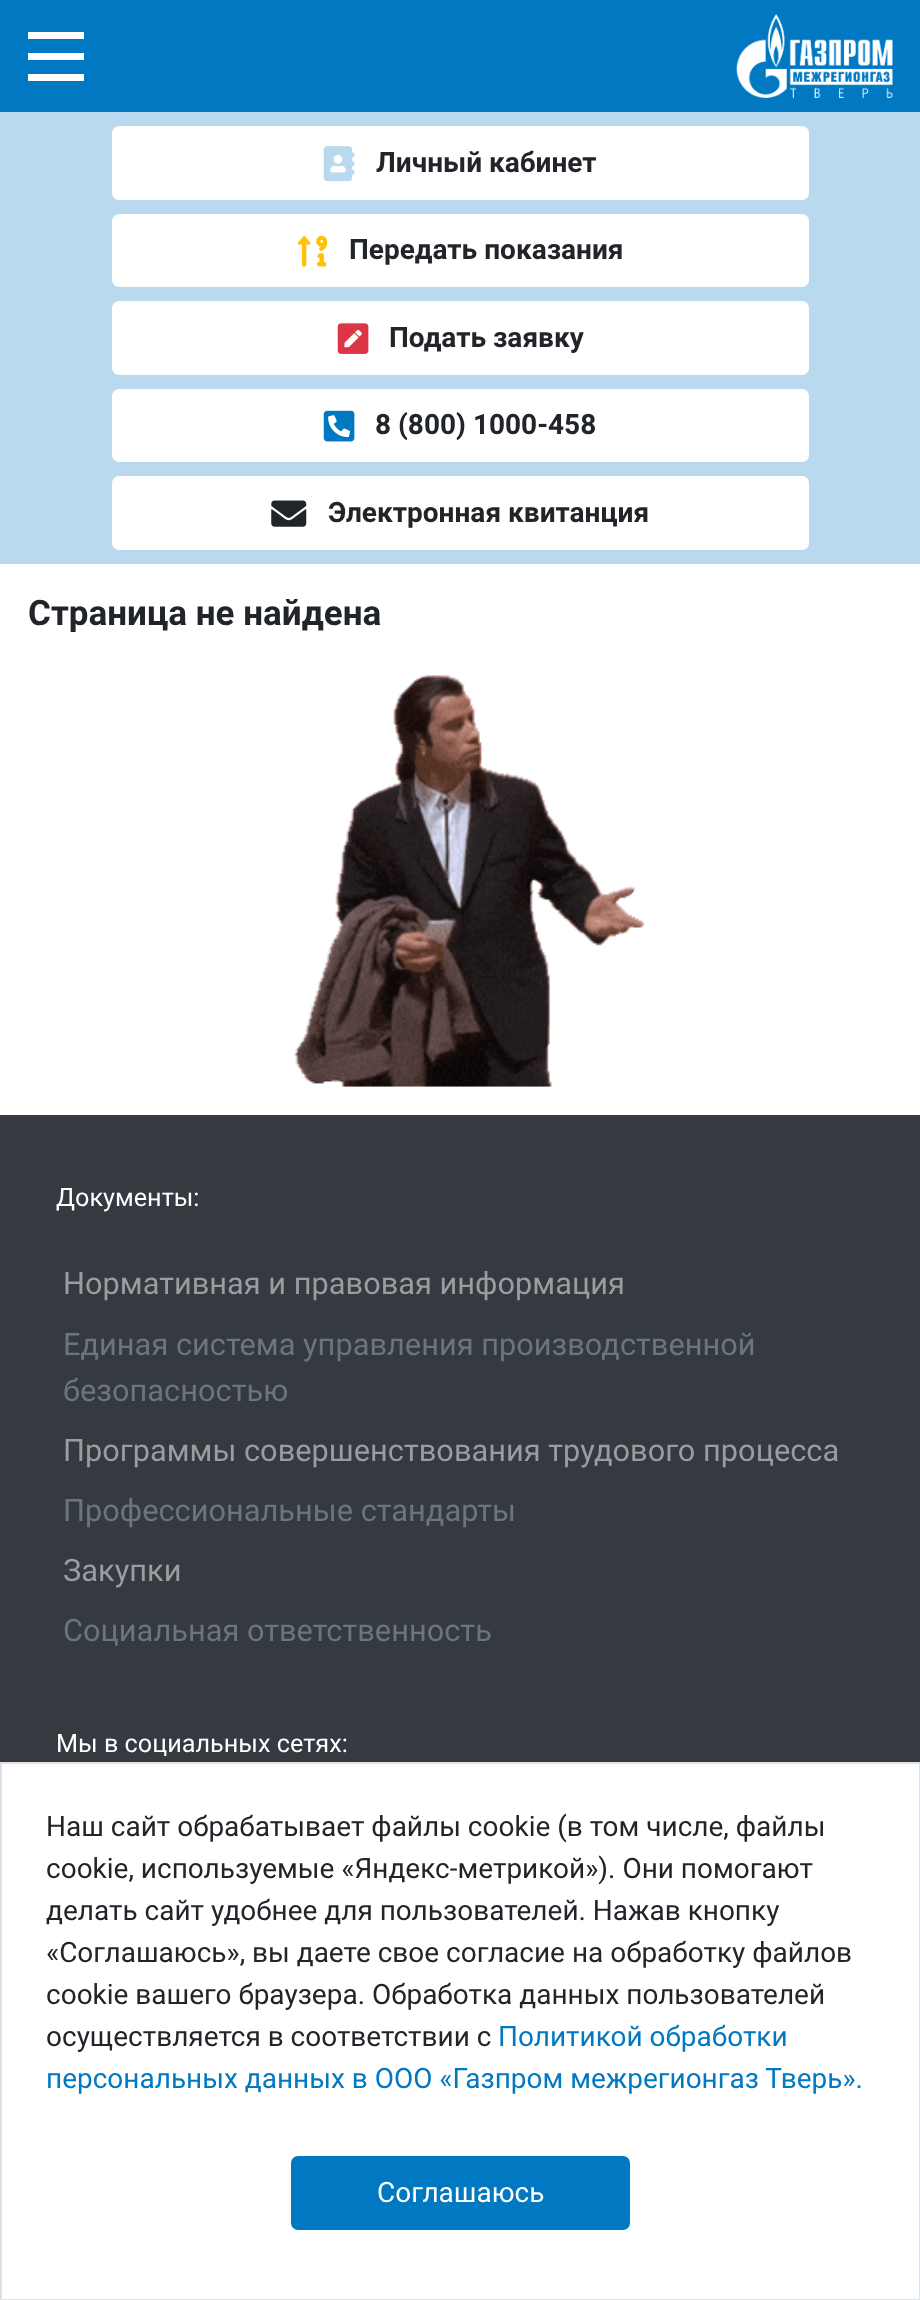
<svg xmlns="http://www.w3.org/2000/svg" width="920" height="2300">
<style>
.a{font:bold 28px Roboto;fill:#212529}
.b{font:bold 35px Roboto;fill:#212529}
.c{font:25.25px Roboto;fill:#fff}
.d{font:30.8px Roboto;fill:#9a9da0}
.e{font:30.8px Roboto;fill:#6c757d}
.f{font:28px Roboto;fill:#212529}
.g{font:28px Roboto;fill:#0078c2}
.h{font:28px Roboto;fill:#fff}
</style>
<rect width="100%" height="100%" fill="#343a40"/>
<path fill="#0078c2" d="M0 0h920v112H0z"/>
<path fill="#fff" d="M28 32h56v7H28z"/>
<path fill="#fff" d="M28 53h56v7H28z"/>
<path fill="#fff" d="M28 74h56v7H28z"/>
<image href="1.png" x="736" y="14" width="157" height="84"/>
<path fill="#b8d9ee" d="M0 112h920v452H0z"/>
<rect fill="#fff" x="112" y="126" width="697" height="74" rx="7"/>
<image href="2.png" x="323" y="146" width="32" height="36"/>
<rect fill="#fff" x="112" y="214" width="697" height="73" rx="7"/>
<image href="3.png" x="297" y="235" width="31" height="32"/>
<rect fill="#fff" x="112" y="301" width="697" height="74" rx="7"/>
<image href="4.png" x="337" y="323" width="32" height="31"/>
<rect fill="#fff" x="112" y="389" width="697" height="73" rx="7"/>
<image href="5.png" x="323" y="410" width="32" height="32"/>
<rect fill="#fff" x="112" y="476" width="697" height="74" rx="7"/>
<image href="6.png" x="271" y="500" width="36" height="27"/>
<path fill="#fff" d="M0 564h920v551H0z"/>
<image href="7.png" x="293" y="675" width="352" height="412"/>
<path fill="#fff" stroke="#dee2e6" stroke-width="2" d="M1 1763h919v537H1z"/>
<rect fill="#0078c2" stroke="#0078c2" stroke-width="2" x="292" y="2157" width="337" height="72" rx="6"/>
<text class="a" x="376" y="172">Личный кабинет</text>
<text class="a" x="349" y="259">Передать показания</text>
<text class="a" x="389" y="347">Подать заявку</text>
<text class="a" x="375" y="434">8 (800) 1000-458</text>
<text class="a" x="328" y="522">Электронная квитанция</text>
<text class="b" x="28" y="625">Страница не найдена</text>
<text class="c" x="56" y="1206">Документы:</text>
<text class="d" x="63" y="1294">Нормативная и правовая информация</text>
<text class="e" x="63" y="1355">Единая система управления производственной</text>
<text class="e" x="63" y="1401">безопасностью</text>
<text class="d" x="63" y="1461">Программы совершенствования трудового процесса</text>
<text class="e" x="63" y="1521">Профессиональные стандарты</text>
<text class="d" x="63" y="1581">Закупки</text>
<text class="e" x="63" y="1641">Социальная ответственность</text>
<text class="c" x="56" y="1752">Мы в социальных сетях:</text>
<text class="f" x="46" y="1836">Наш сайт обрабатывает файлы cookie (в том числе, файлы</text>
<text class="f" x="46" y="1878">cookie, используемые «Яндекс-метрикой»). Они помогают</text>
<text class="f" x="46" y="1920">делать сайт удобнее для пользователей. Нажав кнопку</text>
<text class="f" x="46" y="1962">«Соглашаюсь», вы даете свое согласие на обработку файлов</text>
<text class="f" x="46" y="2004">cookie вашего браузера. Обработка данных пользователей</text>
<text class="f" x="46" y="2046">осуществляется в соответствии с</text>
<text class="g" x="498" y="2046">Политикой обработки</text>
<text class="g" x="46" y="2088">персональных данных в ООО «Газпром межрегионгаз Тверь».</text>
<text class="h" x="377" y="2202">Соглашаюсь</text>
</svg>
